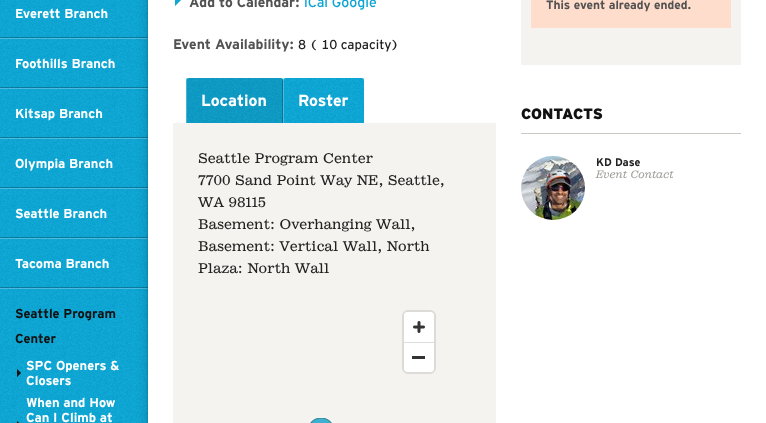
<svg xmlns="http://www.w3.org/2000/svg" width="766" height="423">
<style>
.a{font:bold 13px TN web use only;fill:#fff}
.b{font:bold 13px TN web use only;fill:#121212}
.c{font:bold 14px TN web use only;fill:#525252}
.d{font:14px TN web use only;fill:#0ea5d2}
.e{font:13px TN web use only;fill:#222}
.f{font:bold 16px TN web use only;fill:#fff}
.g{font:13px 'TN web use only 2';fill:#222}
.h{font:bold 12px TN web use only;fill:#525252}
.i{font:900 15px TN web use only;fill:#121212}
.j{font:bold 11px TN web use only;fill:#222}
.k{font:italic 10px TN web use only;fill:#a2a09b}
</style>
<rect width="100%" height="100%" fill="#fff"/>
<image href="1.png" x="0" y="0" width="148" height="423"/>
<path fill="#00000040" d="M0 37h148v1H0z"/>
<path fill="#ffffff40" d="M0 38h148v1H0z"/>
<path fill="#00000040" d="M0 87h148v1H0z"/>
<path fill="#ffffff40" d="M0 88h148v1H0z"/>
<path fill="#00000040" d="M0 137h148v1H0z"/>
<path fill="#ffffff40" d="M0 138h148v1H0z"/>
<path fill="#00000040" d="M0 187h148v1H0z"/>
<path fill="#ffffff40" d="M0 188h148v1H0z"/>
<path fill="#00000040" d="M0 237h148v1H0z"/>
<path fill="#ffffff40" d="M0 238h148v1H0z"/>
<path fill="#00000040" d="M0 287h148v1H0z"/>
<path fill="#ffffff40" d="M0 288h148v1H0z"/>
<image href="2.png" x="17" y="369" width="4" height="8"/>
<image href="3.png" x="17" y="421" width="2" height="2"/>
<path fill="#00000033" filter="blur(6px)" d="M148 -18h618v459H148z"/>
<path fill="#00000033" filter="blur(1px)" d="M148 -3h618v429H148z"/>
<path fill="#fff" d="M148 0h618v423H148z"/>
<image href="4.png" x="175" y="0" width="6" height="6"/>
<image href="5.png" x="186" y="78" width="97" height="45"/>
<path fill="#ffffff40" d="M188 78c-1 0-2 1-2 2v43h1v-43c0-1 1-2 2-2z"/>
<path fill="#00000040" d="M282 79h1v44H282z"/>
<image href="6.png" x="283" y="78" width="81" height="45"/>
<path fill="#ffffff40" d="M285 78c-1 0-2 1-2 2v43h1v-43c0-1 1-2 2-2z"/>
<path fill="#f4f3ef" d="M173 123h323v300H173z"/>
<rect fill="none" stroke="#dcdbd7" stroke-width="2" x="403" y="311" width="32" height="62" rx="5"/>
<rect fill="#fff" x="404" y="312" width="30" height="60" rx="4"/>
<image href="7.png" x="413" y="321" width="12" height="12"/>
<path fill="#333" d="M412 356h13v3H412z"/>
<path fill="#ddd" d="M404 342h30v1H404z"/>
<image href="8.png" x="310" y="418" width="22" height="5"/>
<path fill="#f4f3ef" d="M521 0h220v65H521z"/>
<path fill="#fdc" d="M531 0h200v28H531z"/>
<path fill="#ccc9c2" d="M521 133h220v1H521z"/>
<image href="9.png" x="521" y="156" width="64" height="64"/>
<text class="a" x="15" y="18">Everett Branch</text>
<text class="a" x="15" y="68">Foothills Branch</text>
<text class="a" x="15" y="118">Kitsap Branch</text>
<text class="a" x="15" y="168">Olympia Branch</text>
<text class="a" x="15" y="218">Seattle Branch</text>
<text class="a" x="15" y="268">Tacoma Branch</text>
<text class="b" x="15" y="318">Seattle Program</text>
<text class="b" x="15" y="343">Center</text>
<text class="a" x="26" y="370">SPC Openers &amp;</text>
<text class="a" x="26" y="385">Closers</text>
<text class="a" x="26" y="407">When and How</text>
<text class="a" x="26" y="422">Can I Climb at</text>
<text class="c" x="189" y="7">Add to Calendar:</text>
<text class="d" x="304" y="7">iCal Google</text>
<text class="c" x="173" y="49">Event Availability:</text>
<text class="e" x="298" y="49">8 ( 10 capacity)</text>
<text class="f" x="201" y="106">Location</text>
<text class="f" x="298" y="106">Roster</text>
<text class="g" x="198" y="163">Seattle Program Center</text>
<text class="g" x="198" y="185">7700 Sand Point Way NE, Seattle,</text>
<text class="g" x="198" y="207">WA 98115</text>
<text class="g" x="198" y="229">Basement: Overhanging Wall,</text>
<text class="g" x="198" y="251">Basement: Vertical Wall, North</text>
<text class="g" x="198" y="273">Plaza: North Wall</text>
<text class="h" x="546" y="9">This event already ended.</text>
<text class="i" x="521" y="119">CONTACTS</text>
<text class="j" x="596" y="166">KD Dase</text>
<text class="k" x="596" y="178">Event Contact</text>
</svg>
